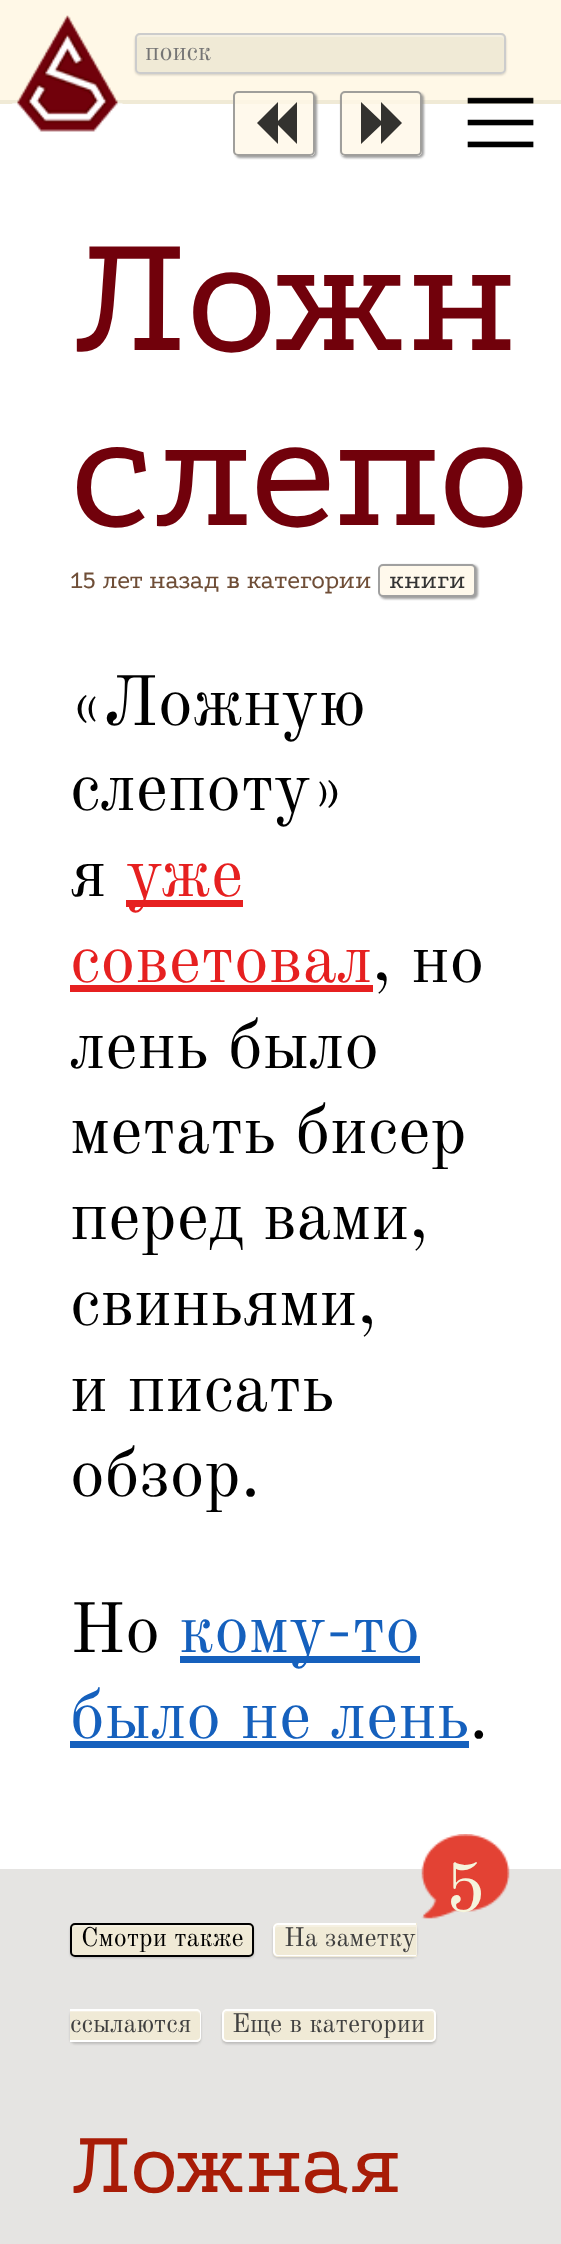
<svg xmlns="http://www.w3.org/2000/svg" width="561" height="2244">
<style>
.a{font:26.25px Old Standard TT;fill:#757575}
.b{font:175px Podkova;fill:#71010b}
.c{font:26.25px Podkova;fill:#6f4e37}
.d{font:26.25px Podkova;fill:#333}
.e{font:70px Old Standard TT;fill:#000}
.f{font:70px Old Standard TT;fill:#e62020}
.g{font:70px Old Standard TT;fill:#1560bd}
.h{font:70px Old Standard TT;fill:#f5f5dc}
.i{font:26.25px Old Standard TT;fill:#000}
.j{font:26.25px Old Standard TT;fill:#404040}
.k{font:91px Podkova;fill:#a81c07}
</style>
<defs>
<clipPath id="clip1"><path d="M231 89h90v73h-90zm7 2h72c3 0 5 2 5 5v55c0 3-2 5-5 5h-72c-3 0-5-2-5-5v-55c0-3 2-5 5-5z" clip-rule="evenodd"/></clipPath>
<clipPath id="clip2"><path d="M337 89h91v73h-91zm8 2h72c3 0 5 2 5 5v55c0 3-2 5-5 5h-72c-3 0-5-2-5-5v-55c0-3 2-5 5-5z" clip-rule="evenodd"/></clipPath>
</defs>
<rect width="100%" height="100%" fill="#fff"/>
<path fill="#fff8e7" d="M0 0h561v100H0z"/>
<path fill="#f0ead6" d="M0 100h561v4H0z"/>
<image href="1.png" x="12" y="15" width="111" height="117"/>
<rect fill="#6464644d" filter="blur(1px)" x="135" y="35" width="371" height="40" rx="5"/>
<rect fill="#f0ead6" x="135" y="33" width="371" height="41" rx="5"/>
<path fill="#f5f0e2" d="M140 37h360c2 0 4 1 4 3v-1c0-2-2-4-4-4h-359c-2 0-3 1-4 3z"/>
<rect fill="none" stroke="#ccc" stroke-width="2" x="136" y="34" width="369" height="39" rx="4"/>
<g clip-path="url(#clip1)">
<rect fill="#888888cc" filter="blur(1px)" x="235" y="93" width="82" height="65" rx="5"/>
</g>
<rect fill="#fff8e7cc" x="233" y="91" width="82" height="65" rx="5"/>
<rect fill="none" stroke="#888888cc" stroke-width="2" x="234" y="92" width="80" height="63" rx="4"/>
<path fill="#000000cc" d="M278 102v19l19-19v42l-19-19v19l-21-21z"/>
<g clip-path="url(#clip2)">
<rect fill="#888888cc" filter="blur(1px)" x="341" y="93" width="83" height="65" rx="5"/>
</g>
<rect fill="#fff8e7cc" x="340" y="91" width="82" height="65" rx="5"/>
<rect fill="none" stroke="#888888cc" stroke-width="2" x="341" y="92" width="80" height="63" rx="4"/>
<path fill="#000000cc" d="M381 144v-19l-20 19v-42l20 19v-19l21 21z"/>
<image href="2.png" x="467" y="97" width="67" height="51"/>
<rect fill="#a0a0a0" filter="blur(1px)" x="380" y="565" width="98" height="34" rx="5"/>
<rect fill="#fff9ec" stroke="#a0a0a0" stroke-width="2" x="379" y="565" width="96" height="31" rx="4"/>
<path fill="#e62020" d="M126 900h117v7H126z"/>
<path fill="#e62020" d="M70 985h303v7H70z"/>
<path fill="#1560bd" d="M180 1656h240v7H180z"/>
<path fill="#1560bd" d="M70 1741h399v7H70z"/>
<path fill="#e5e4e2" d="M0 1869h561v375H0z"/>
<image href="3.png" x="421" y="1834" width="89" height="85"/>
<rect fill="#6464644d" filter="blur(1px)" x="70" y="1925" width="184" height="33" rx="5"/>
<rect fill="#f0ead6" x="70" y="1923" width="184" height="34" rx="5"/>
<path fill="#f5f0e2" d="M75 1927h173c2 0 4 1 4 3v-1c0-2-2-4-4-4h-172c-2 0-4 2-4 4v1c0-2 1-3 3-3z"/>
<rect fill="none" stroke="#000" stroke-width="2" x="71" y="1924" width="182" height="32" rx="4"/>
<rect fill="#6464644d" filter="blur(1px)" x="273" y="1925" width="144" height="33" rx="5"/>
<path fill="#f0ead6" d="M278 1923h139v34h-139c-3 0-5-2-5-5v-24c0-3 2-5 5-5z"/>
<path fill="#f5f0e2" d="M278 1927h138v28h1v-30h-138c-2 0-4 2-4 4v1c0-2 1-3 3-3z"/>
<path fill="#fff" fill-rule="evenodd" d="M278 1923h138v33h-138c-3 0-5-2-5-5v-23c0-2 2-5 5-5zm0 2h138v30h-138c-2 0-3-2-3-4v-23c0-1 1-3 3-3z"/>
<rect fill="#6464644d" filter="blur(1px)" x="70" y="2011" width="131" height="33" rx="5"/>
<path fill="#f0ead6" d="M70 2009h126c3 0 5 2 5 5v23c0 3-2 5-5 5h-126z"/>
<path fill="#f5f0e2" d="M70 2012h126c2 0 4 2 4 4v-1c0-2-2-4-4-4h-126z"/>
<path fill="#fff" fill-rule="evenodd" d="M70 2009h126c3 0 5 2 5 5v23c0 3-2 5-5 5h-126zm0 2h126c2 0 4 1 4 3v23c0 2-2 3-4 3h-126z"/>
<rect fill="#6464644d" filter="blur(1px)" x="222" y="2011" width="214" height="33" rx="5"/>
<rect fill="#f0ead6" x="222" y="2009" width="214" height="33" rx="5"/>
<path fill="#f5f0e2" d="M228 2012h202c2 0 4 2 4 4v-1c0-2-2-4-4-4h-202c-2 0-4 2-4 4v1c0-2 2-4 4-4z"/>
<rect fill="none" stroke="#fff" stroke-width="2" x="223" y="2010" width="212" height="31" rx="4"/>
<text class="a" x="145" y="60">поиск</text>
<text class="b" x="70" y="350">Ложн</text>
<text class="b" x="70" y="525">слепо</text>
<text class="c" x="70" y="588">15 лет назад в категории</text>
<text class="d" x="389" y="588">книги</text>
<text class="e" x="70" y="725">«Ложную</text>
<text class="e" x="70" y="810">слепоту»</text>
<text class="e" x="70" y="896">я</text>
<text class="f" x="126" y="896">уже</text>
<text class="f" x="70" y="982">советовал</text>
<text class="e" x="372" y="982">, но</text>
<text class="e" x="70" y="1068">лень было</text>
<text class="e" x="70" y="1153">метать бисер</text>
<text class="e" x="70" y="1239">перед вами,</text>
<text class="e" x="70" y="1325">свиньями,</text>
<text class="e" x="70" y="1411">и писать</text>
<text class="e" x="70" y="1496">обзор.</text>
<text class="e" x="70" y="1652">Но</text>
<text class="g" x="179" y="1652">кому-то</text>
<text class="g" x="70" y="1738">было не лень</text>
<text class="e" x="469" y="1738">.</text>
<text class="h" x="445" y="1911">5</text>
<text class="i" x="81" y="1946">Смотри также</text>
<text class="j" x="284" y="1946">На заметку</text>
<text class="j" x="70" y="2032">ссылаются</text>
<text class="j" x="232" y="2032">Еще в категории</text>
<text class="k" x="70" y="2192">Ложная</text>
</svg>
